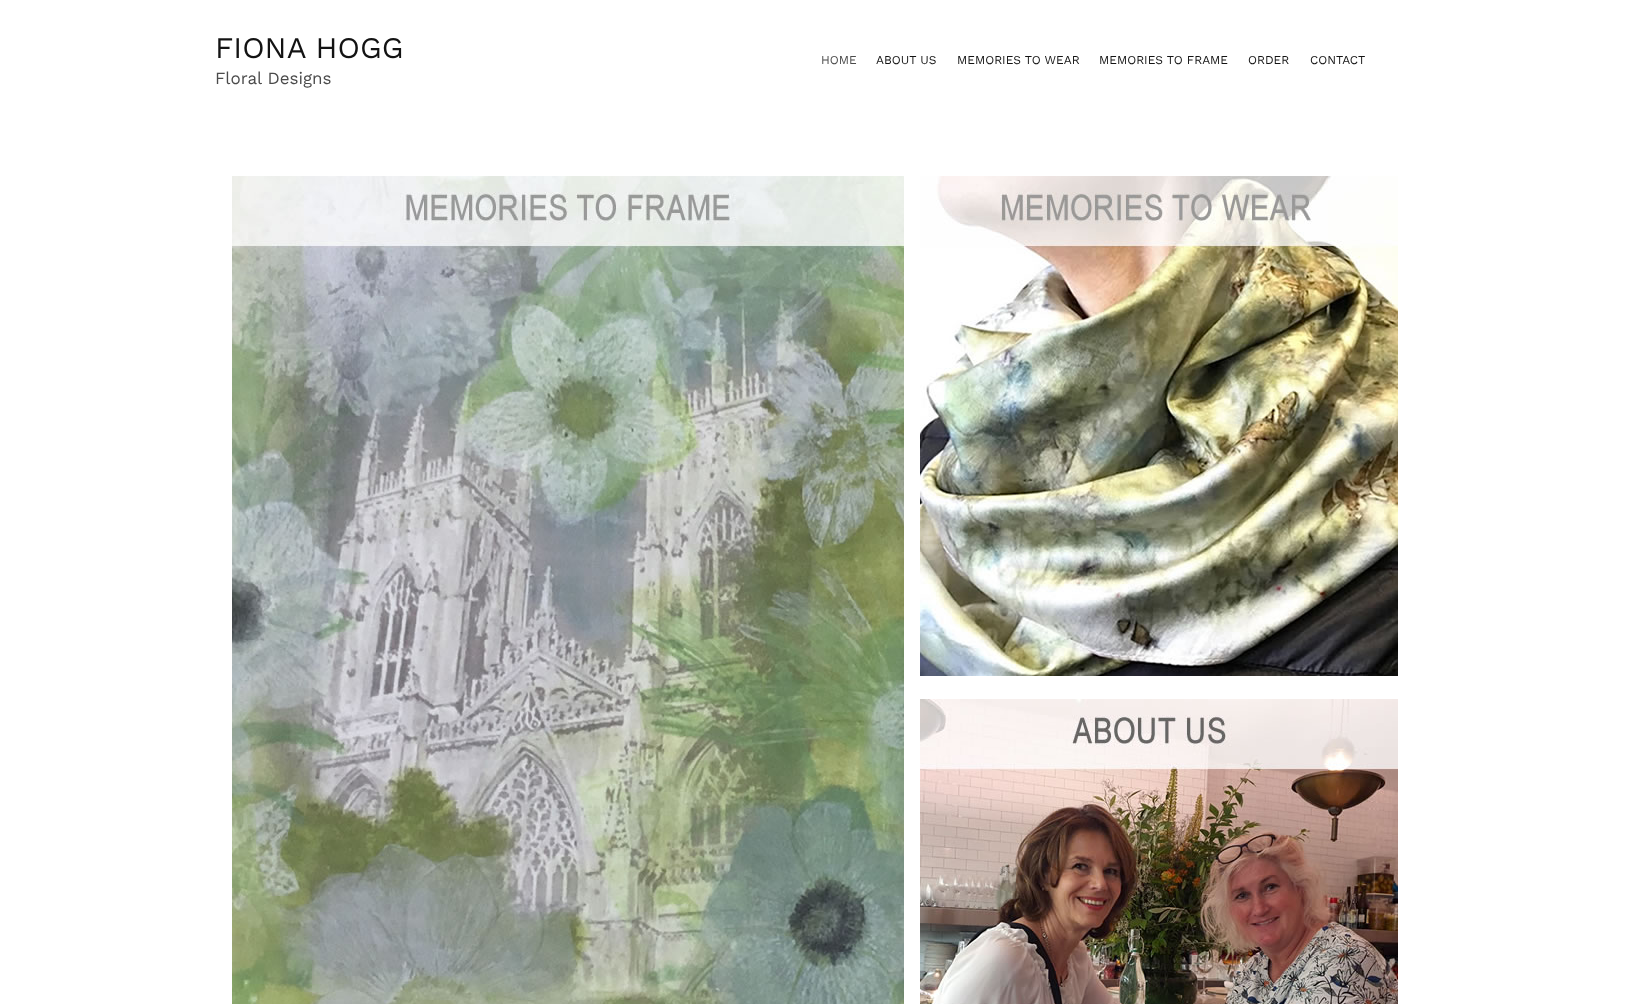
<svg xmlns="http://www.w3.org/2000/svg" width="1630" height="1004">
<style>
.a{font:30px Work Sans;fill:#131313}
.b{font:17px Work Sans;fill:#4b4b4b}
.c{font:12px Work Sans;fill:#4b4b4b}
.d{font:12px Work Sans;fill:#131313}
</style>
<rect width="100%" height="100%" fill="#fff"/>
<image href="1.png" x="232" y="176" width="672" height="828"/>
<image href="2.png" x="920" y="176" width="478" height="500"/>
<image href="3.png" x="920" y="699" width="478" height="305"/>
<text class="a" x="215" y="58">FIONA HOGG</text>
<text class="b" x="215" y="84">Floral Designs</text>
<text class="c" x="821" y="64">HOME</text>
<text class="d" x="876" y="64">ABOUT US</text>
<text class="d" x="957" y="64">MEMORIES TO WEAR</text>
<text class="d" x="1099" y="64">MEMORIES TO FRAME</text>
<text class="d" x="1248" y="64">ORDER</text>
<text class="d" x="1310" y="64">CONTACT</text>
</svg>
